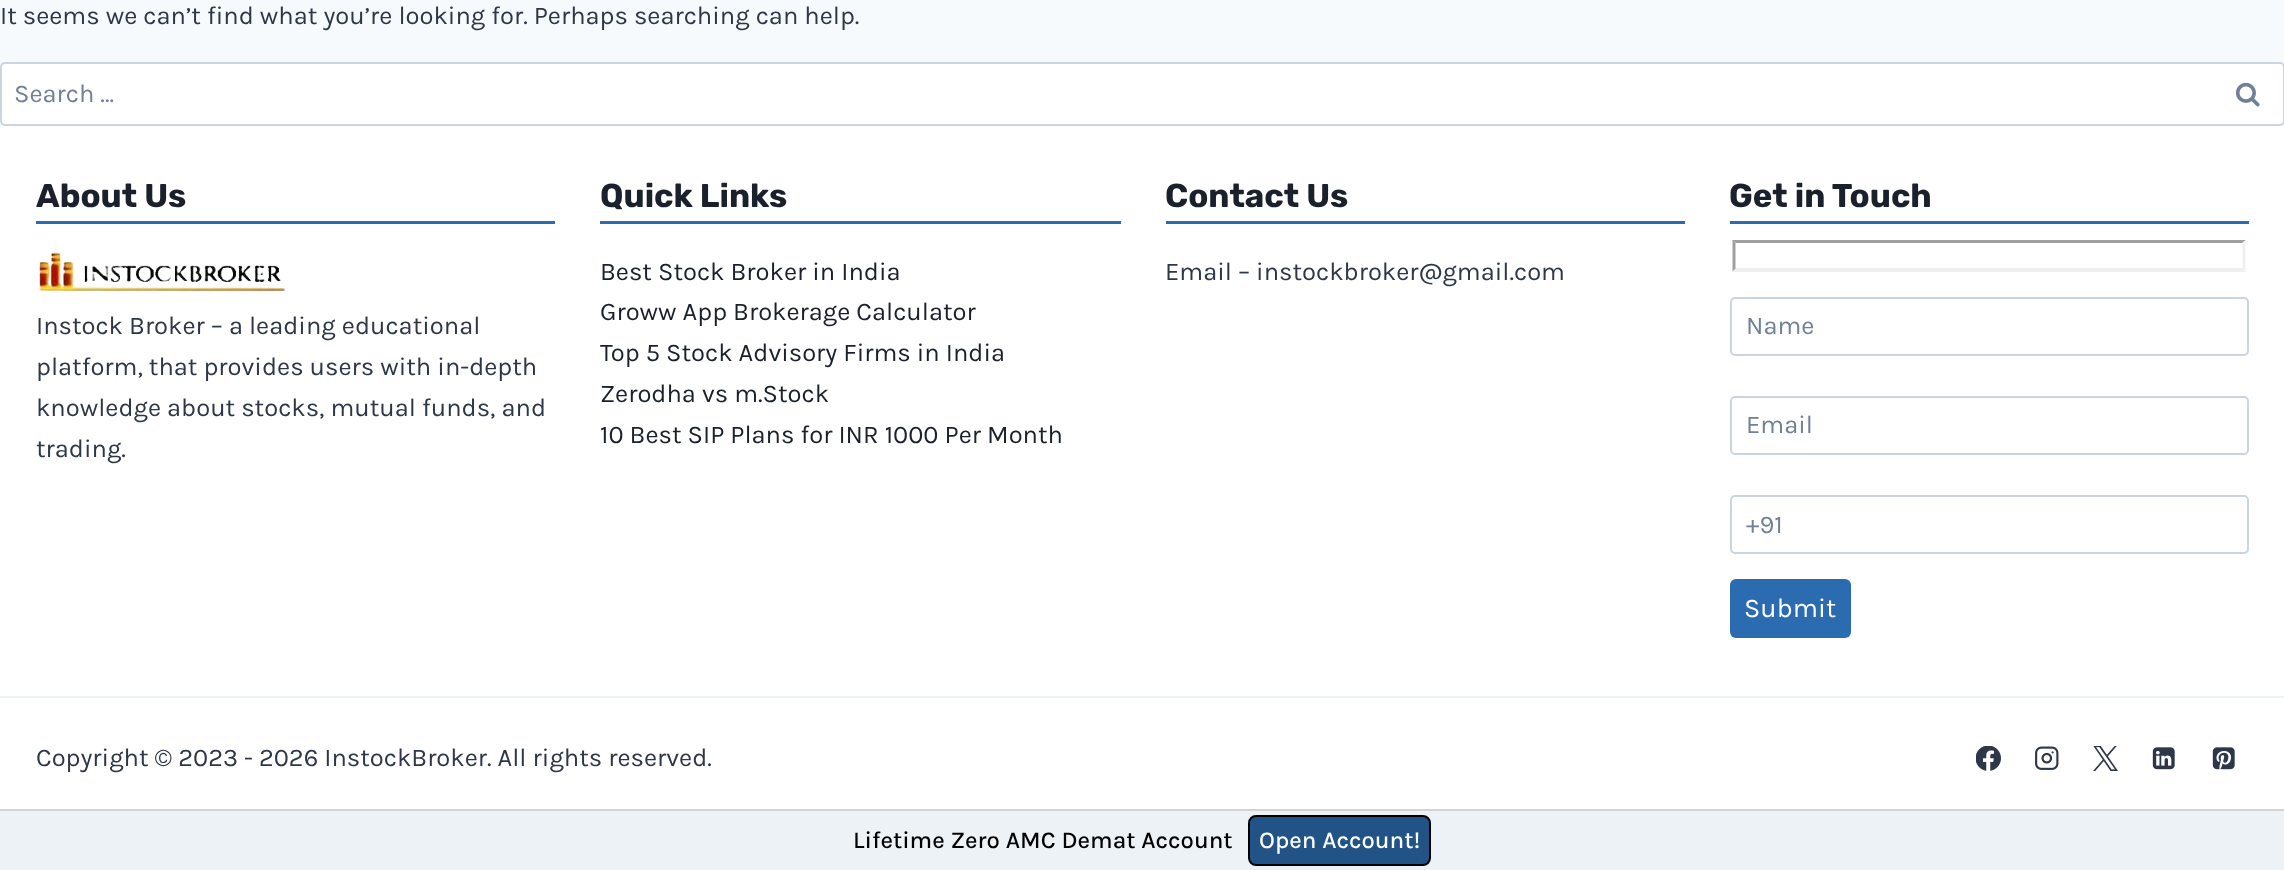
<svg xmlns="http://www.w3.org/2000/svg" width="2284" height="870">
<style>
.a{font:25.5px Karla;fill:#2d3748}
.b{font:25.5px Karla;fill:#718096}
.c{font:bold 33px Rubik;fill:#1a202c}
.d{font:25.5px Karla;fill:#1a202c}
.e{font:27px Karla;fill:#fff}
.f{font:500 24px Karla;fill:#000}
.g{font:500 24px Karla;fill:#fff}
</style>
<rect width="100%" height="100%" fill="#f7fafc"/>
<rect fill="#fff" stroke="#cbd5e0" stroke-width="2" x="1" y="63" width="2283" height="62" rx="4"/>
<image href="1.png" x="2235" y="82" width="25" height="25"/>
<path fill="#fff" d="M0 126h2284v570H0z"/>
<path fill="#edf2f7" d="M0 696h2284v2H0z"/>
<path fill="#2b6cb0" d="M36 221h519v3H36z"/>
<image href="2.png" x="38" y="252" width="248" height="40"/>
<path fill="#2b6cb0" d="M600 221h521v3H600z"/>
<path fill="#2b6cb0" d="M1166 221h519v3H1166z"/>
<path fill="#2b6cb0" d="M1730 221h519v3H1730z"/>
<path fill="#9f9f9f" d="M1732 240h514l-4 3h-506z"/>
<path fill="#efefef" d="M2245.5 240v31.5l-3-3v-25.5z"/>
<path fill="#efefef" d="M2246 272h-514l4-4h506z"/>
<path fill="#9f9f9f" d="M1732.5 271.5v-31.5l3 3v25.5z"/>
<rect fill="none" stroke="#cbd5e0" stroke-width="2" x="1731" y="298" width="517" height="57" rx="4"/>
<rect fill="none" stroke="#cbd5e0" stroke-width="2" x="1731" y="397" width="517" height="57" rx="4"/>
<rect fill="none" stroke="#cbd5e0" stroke-width="2" x="1731" y="496" width="517" height="57" rx="4"/>
<rect fill="#2b6cb0" x="1730" y="579" width="121" height="59" rx="6"/>
<path fill="#fff" d="M0 698h2284v111H0z"/>
<image href="3.png" x="1976" y="746" width="25" height="25"/>
<image href="4.png" x="2035" y="746" width="24" height="24"/>
<image href="5.png" x="2093" y="746" width="25" height="25"/>
<image href="6.png" x="2152" y="747" width="23" height="23"/>
<image href="7.png" x="2212" y="747" width="23" height="23"/>
<path fill="#edf2f7" d="M0 811h2284v59H0z"/>
<path fill="#d3d3d3" d="M0 809h2284v2H0z"/>
<rect fill="#215387" stroke="#000" stroke-width="2" x="1249" y="816" width="181" height="49" rx="7"/>
<text class="a" x="0" y="24">It seems we can’t find what you’re looking for. Perhaps searching can help.</text>
<text class="b" x="14" y="102">Search …</text>
<text class="c" x="36" y="207">About Us</text>
<text class="a" x="36" y="334">Instock Broker – a leading educational</text>
<text class="a" x="36" y="375">platform, that provides users with in-depth</text>
<text class="a" x="36" y="416">knowledge about stocks, mutual funds, and</text>
<text class="a" x="36" y="457">trading.</text>
<text class="c" x="600" y="207">Quick Links</text>
<text class="d" x="600" y="280">Best Stock Broker in India</text>
<text class="d" x="600" y="320">Groww App Brokerage Calculator</text>
<text class="d" x="600" y="361">Top 5 Stock Advisory Firms in India</text>
<text class="d" x="600" y="402">Zerodha vs m.Stock</text>
<text class="d" x="600" y="443">10 Best SIP Plans for INR 1000 Per Month</text>
<text class="c" x="1165" y="207">Contact Us</text>
<text class="a" x="1165" y="280">Email – instockbroker@gmail.com</text>
<text class="c" x="1729" y="207">Get in Touch</text>
<text class="b" x="1746" y="334">Name</text>
<text class="b" x="1746" y="433">Email</text>
<text class="b" x="1746" y="533">+91</text>
<text class="e" x="1744" y="617">Submit</text>
<text class="a" x="36" y="766">Copyright © 2023 - 2026 InstockBroker. All rights reserved.</text>
<text class="f" x="853" y="848">Lifetime Zero AMC Demat Account</text>
<text class="g" x="1259" y="848">Open Account!</text>
</svg>
